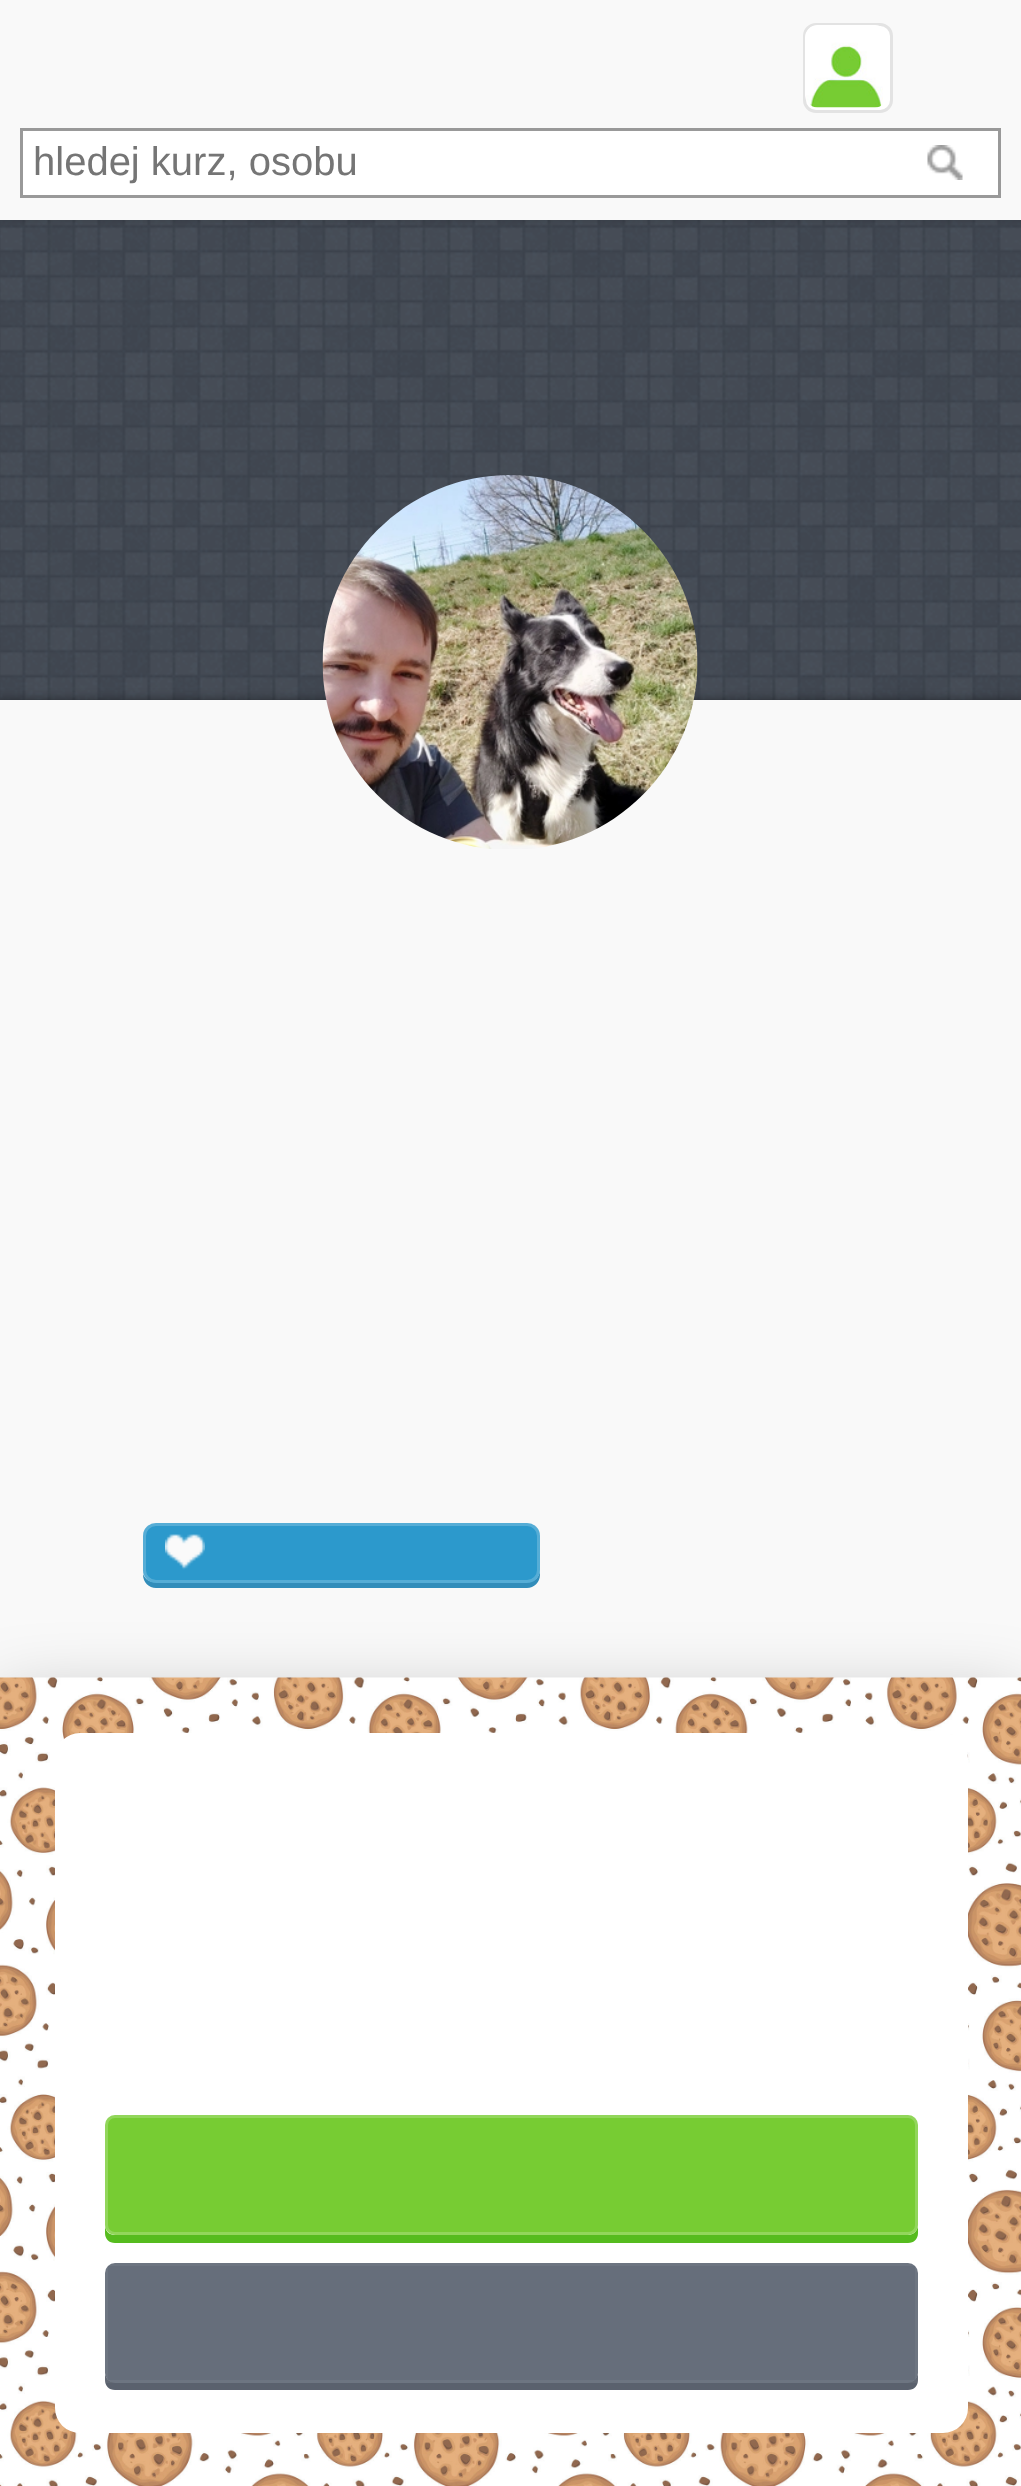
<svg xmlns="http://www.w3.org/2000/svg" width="1021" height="2486">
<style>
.a{font:40px Liberation Sans;fill:#757575}
</style>
<rect width="100%" height="100%" fill="#fff"/>
<image href="1.png" x="0" y="220" width="1021" height="480"/>
<path fill="#0000001a" filter="blur(2.5px)" d="M-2 -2h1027v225H-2z"/>
<path fill="#f9f9f9" d="M0 0h1021v220H0z"/>
<rect fill="#fff" stroke="#e3e3e3" stroke-width="3" x="804.5" y="24.5" width="87" height="87" rx="11.5"/>
<image href="2.png" x="805" y="25" width="78" height="83"/>
<path fill="#fff" d="M23 131h975v64H23z"/>
<path fill="#999" d="M20 128h980v3H20z"/>
<path fill="#999" d="M20 195h873v3H20z"/>
<path fill="#999" d="M20 128h3v70H20z"/>
<image href="3.png" x="927" y="145" width="36" height="35"/>
<path fill="#999" d="M998 128h3v70H998z"/>
<path fill="#999" d="M893 195h107v3H893z"/>
<path fill="#0000004d" filter="blur(4px)" d="M-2 698h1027v1377H-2z"/>
<path fill="#f9f9f9" d="M0 700h1021v978H0z"/>
<image href="4.png" x="322" y="475" width="376" height="374"/>
<path fill="#328dba" d="M143 1574v1c0 7 6 13 13 13h371c7 0 13-6 13-13v-5c0 7-6 12-12 12h-373c-6 0-10-3-12-8z"/>
<rect fill="#2c99cc" x="143" y="1523" width="397" height="60" rx="13"/>
<image href="5.png" x="165" y="1534" width="40" height="36"/>
<rect fill="none" stroke="#ffffff33" stroke-width="3" x="144.5" y="1524.5" width="394" height="57" rx="11.5"/>
<path fill="#02020347" filter="blur(37.5px)" d="M0 1703h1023v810H0z"/>
<image href="6.png" x="0" y="1677" width="1021" height="809"/>
<rect fill="#fff" x="55" y="1733" width="913" height="700" rx="25"/>
<path fill="#56bc1e" d="M105 2225v8c0 6 4 10 10 10h793c6 0 10-4 10-10v-100v-3v95c0 6-5 10-10 10h-793c-6 0-10-4-10-10z"/>
<rect fill="#7c3" x="105" y="2115" width="813" height="120" rx="10"/>
<rect fill="none" stroke="#ffffff33" stroke-width="3" x="106.5" y="2116.5" width="810" height="117" rx="8.5"/>
<path fill="#5a616d" d="M105 2372v8c0 6 4 10 10 10h793c6 0 10-4 10-10v-100v-3v95c0 6-5 10-10 10h-793c-6 0-10-4-10-10z"/>
<rect fill="#666e7b" x="105" y="2263" width="813" height="120" rx="10"/>
<path fill="none" stroke="#ffffff0d" stroke-width="3" d="M106.5 2264.5h810v117H106.5z"/>
<text class="a" x="33" y="175">hledej kurz, osobu</text>
</svg>
